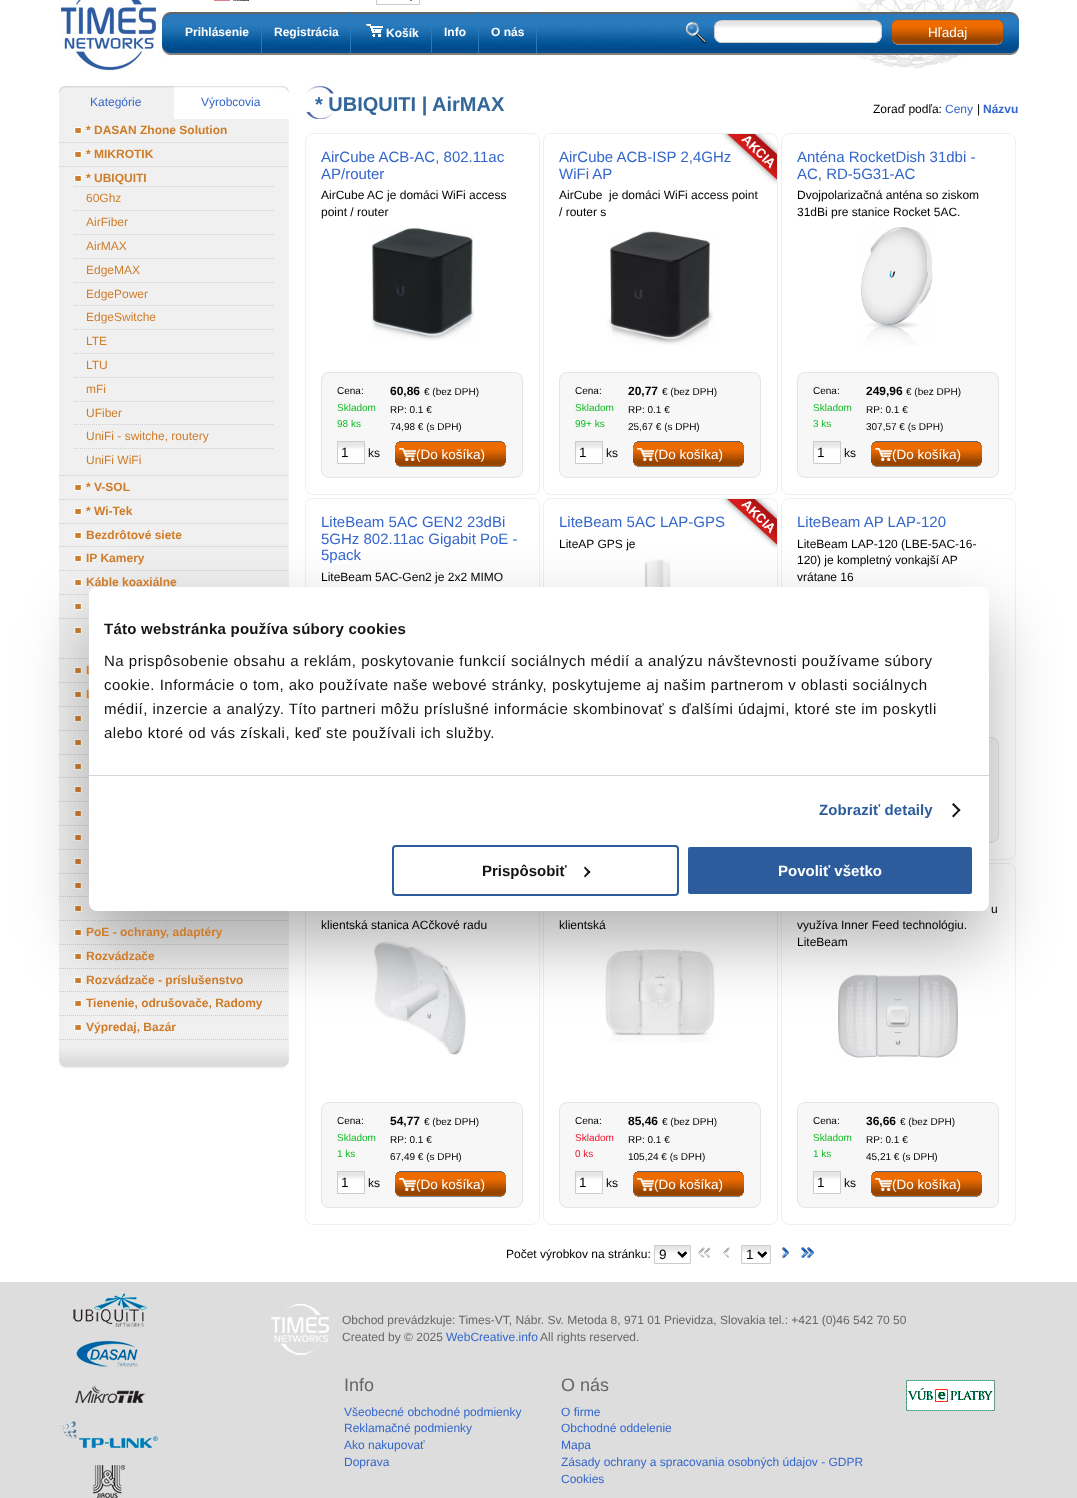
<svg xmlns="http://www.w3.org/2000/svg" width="1077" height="1498">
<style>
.a{font:bold 12px Liberation Sans;fill:#fff}
.b{font:13.5px Liberation Sans;fill:#fff}
.c{font:12px Liberation Sans;fill:#36c}
.d{font:bold 12px Liberation Sans;fill:#cf7c2a}
.e{font:12px Liberation Sans;fill:#cf7c2a}
.f{font:bold 20px Liberation Sans;fill:#369}
.g{font:12px Liberation Sans;fill:#000}
.h{font:bold 12px Liberation Sans;fill:#36c}
.i{font:15px Liberation Sans;fill:#36c}
.j{font:10px Liberation Sans;fill:#000}
.k{font:10px Liberation Sans;fill:#0ebc21}
.l{font:bold 12px Liberation Sans;fill:#000}
.m{font:13.5px Liberation Sans;fill:#000}
.n{font:10px Liberation Sans;fill:#ed122c}
.o{font:bold 15px Liberation Sans;letter-spacing:0.25px;fill:#141414}
.p{font:15px Liberation Sans;letter-spacing:0.5px;fill:#141414}
.q{font:bold 15px Liberation Sans;letter-spacing:0.1px;fill:#2c5c9c}
.r{font:bold 15px Liberation Sans;fill:#141414}
.s{font:bold 15px Liberation Sans;fill:#fff}
.t{font:12px Liberation Sans;fill:#666}
.u{font:18px Liberation Sans;fill:#666}
</style>
<rect width="100%" height="100%" fill="#ddd"/>
<path fill="#fff" d="M0 0h1077v1282H0z"/>
<image href="1.png" x="158" y="0" width="861" height="69"/>
<image href="2.png" x="59" y="0" width="99" height="71"/>
<image href="3.png" x="214" y="0" width="16" height="1"/>
<image href="4.png" x="233" y="0" width="16" height="1"/>
<image href="5.png" x="410" y="0" width="2" height="1"/>
<path fill="none" stroke="#ccc" d="M376.5 -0.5h43v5H376.5z"/>
<path fill="none" stroke="#000" stroke-width="2" d="M407-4.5l4 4l4-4"/>
<path fill="#297abd" d="M261 12h1v41H261z"/>
<path fill="#297abd" d="M350 12h1v41H350z"/>
<path fill="#297abd" d="M431 12h1v42H431z"/>
<image href="6.png" x="366" y="24" width="17" height="13"/>
<path fill="#297abd" d="M478 12h1v41H478z"/>
<path fill="#297abd" d="M536 12h1v41H536z"/>
<image href="7.png" x="714" y="21" width="168" height="22"/>
<rect fill="none" stroke="#ccc" x="714.5" y="20.5" width="167" height="22" rx="7.5"/>
<image href="8.png" x="892" y="19" width="111" height="26"/>
<image href="9.png" x="59" y="86" width="115" height="33"/>
<image href="10.png" x="174" y="86" width="115" height="8"/>
<path fill="#f0f0f0" d="M59 119h230v921H59z"/>
<path fill="none" stroke="#cbcbcb" stroke-dasharray="1 1" d="M59 142.5h230"/>
<image href="11.png" x="74" y="127" width="8" height="7"/>
<path fill="none" stroke="#cbcbcb" stroke-dasharray="1 1" d="M59 166.5h230"/>
<image href="11.png" x="74" y="151" width="8" height="7"/>
<path fill="none" stroke="#cbcbcb" stroke-dasharray="1 1" d="M59 475.5h230"/>
<image href="11.png" x="74" y="175" width="8" height="7"/>
<path fill="none" stroke="#cfcfcf" stroke-dasharray="1 1" d="M74 186.5h200"/>
<path fill="none" stroke="#cfcfcf" stroke-dasharray="1 1" d="M74 210.5h200"/>
<path fill="none" stroke="#cfcfcf" stroke-dasharray="1 1" d="M74 234.5h200"/>
<path fill="none" stroke="#cfcfcf" stroke-dasharray="1 1" d="M74 258.5h200"/>
<path fill="none" stroke="#cfcfcf" stroke-dasharray="1 1" d="M74 282.5h200"/>
<path fill="none" stroke="#cfcfcf" stroke-dasharray="1 1" d="M74 305.5h200"/>
<path fill="none" stroke="#cfcfcf" stroke-dasharray="1 1" d="M74 329.5h200"/>
<path fill="none" stroke="#cfcfcf" stroke-dasharray="1 1" d="M74 353.5h200"/>
<path fill="none" stroke="#cfcfcf" stroke-dasharray="1 1" d="M74 377.5h200"/>
<path fill="none" stroke="#cfcfcf" stroke-dasharray="1 1" d="M74 401.5h200"/>
<path fill="none" stroke="#cfcfcf" stroke-dasharray="1 1" d="M74 424.5h200"/>
<path fill="none" stroke="#cfcfcf" stroke-dasharray="1 1" d="M74 448.5h200"/>
<path fill="none" stroke="#cbcbcb" stroke-dasharray="1 1" d="M59 499.5h230"/>
<image href="11.png" x="74" y="484" width="8" height="7"/>
<path fill="none" stroke="#cbcbcb" stroke-dasharray="1 1" d="M59 523.5h230"/>
<image href="11.png" x="74" y="508" width="8" height="7"/>
<path fill="none" stroke="#cbcbcb" stroke-dasharray="1 1" d="M59 546.5h230"/>
<image href="11.png" x="74" y="532" width="8" height="7"/>
<path fill="none" stroke="#cbcbcb" stroke-dasharray="1 1" d="M59 570.5h230"/>
<image href="11.png" x="74" y="555" width="8" height="7"/>
<path fill="none" stroke="#cbcbcb" stroke-dasharray="1 1" d="M59 594.5h230"/>
<image href="11.png" x="74" y="579" width="8" height="7"/>
<path fill="none" stroke="#cbcbcb" stroke-dasharray="1 1" d="M59 618.5h230"/>
<image href="11.png" x="74" y="603" width="8" height="7"/>
<path fill="none" stroke="#cbcbcb" stroke-dasharray="1 1" d="M59 658.5h230"/>
<image href="11.png" x="74" y="627" width="8" height="7"/>
<path fill="none" stroke="#cbcbcb" stroke-dasharray="1 1" d="M59 682.5h230"/>
<image href="11.png" x="74" y="667" width="8" height="7"/>
<path fill="none" stroke="#cbcbcb" stroke-dasharray="1 1" d="M59 706.5h230"/>
<image href="11.png" x="74" y="691" width="8" height="7"/>
<path fill="none" stroke="#cbcbcb" stroke-dasharray="1 1" d="M59 730.5h230"/>
<image href="11.png" x="74" y="715" width="8" height="7"/>
<path fill="none" stroke="#cbcbcb" stroke-dasharray="1 1" d="M59 754.5h230"/>
<image href="11.png" x="74" y="739" width="8" height="7"/>
<path fill="none" stroke="#cbcbcb" stroke-dasharray="1 1" d="M59 777.5h230"/>
<image href="11.png" x="74" y="763" width="8" height="7"/>
<path fill="none" stroke="#cbcbcb" stroke-dasharray="1 1" d="M59 801.5h230"/>
<image href="11.png" x="74" y="786" width="8" height="7"/>
<path fill="none" stroke="#cbcbcb" stroke-dasharray="1 1" d="M59 825.5h230"/>
<image href="11.png" x="74" y="810" width="8" height="7"/>
<path fill="none" stroke="#cbcbcb" stroke-dasharray="1 1" d="M59 849.5h230"/>
<image href="11.png" x="74" y="834" width="8" height="7"/>
<path fill="none" stroke="#cbcbcb" stroke-dasharray="1 1" d="M59 873.5h230"/>
<image href="11.png" x="74" y="858" width="8" height="7"/>
<path fill="none" stroke="#cbcbcb" stroke-dasharray="1 1" d="M59 896.5h230"/>
<image href="11.png" x="74" y="882" width="8" height="7"/>
<path fill="none" stroke="#cbcbcb" stroke-dasharray="1 1" d="M59 920.5h230"/>
<image href="11.png" x="74" y="905" width="8" height="7"/>
<path fill="none" stroke="#cbcbcb" stroke-dasharray="1 1" d="M59 944.5h230"/>
<image href="11.png" x="74" y="929" width="8" height="7"/>
<path fill="none" stroke="#cbcbcb" stroke-dasharray="1 1" d="M59 968.5h230"/>
<image href="11.png" x="74" y="953" width="8" height="7"/>
<path fill="none" stroke="#cbcbcb" stroke-dasharray="1 1" d="M59 991.5h230"/>
<image href="11.png" x="74" y="977" width="8" height="7"/>
<path fill="none" stroke="#cbcbcb" stroke-dasharray="1 1" d="M59 1015.5h230"/>
<image href="11.png" x="74" y="1000" width="8" height="7"/>
<path fill="none" stroke="#cbcbcb" stroke-dasharray="1 1" d="M59 1039.5h230"/>
<image href="11.png" x="74" y="1024" width="8" height="7"/>
<image href="12.png" x="59" y="1040" width="230" height="29"/>
<image href="13.png" x="305" y="86" width="29" height="33"/>
<rect fill="none" stroke="#f0f0f0" x="305.5" y="133.5" width="234" height="361" rx="7.5"/>
<image href="14.png" x="371" y="228" width="103" height="113"/>
<rect fill="#f7f7f7" stroke="#e4e4e4" x="321.5" y="372.5" width="201" height="105" rx="7.5"/>
<path fill="#fff" d="M338 449h26v14H338z"/>
<image href="15.png" x="338" y="442" width="26" height="7"/>
<path fill="none" stroke="#ccc" d="M337.5 441.5h27v22H337.5z"/>
<image href="16.png" x="395" y="441" width="111" height="26"/>
<image href="17.png" x="722" y="134" width="55" height="50"/>
<rect fill="none" stroke="#f0f0f0" x="543.5" y="133.5" width="234" height="361" rx="7.5"/>
<image href="18.png" x="607" y="231" width="107" height="114"/>
<rect fill="#f7f7f7" stroke="#e4e4e4" x="559.5" y="372.5" width="201" height="105" rx="7.5"/>
<path fill="#fff" d="M576 449h26v14H576z"/>
<image href="15.png" x="576" y="442" width="26" height="7"/>
<path fill="none" stroke="#ccc" d="M575.5 441.5h27v22H575.5z"/>
<image href="16.png" x="633" y="441" width="111" height="26"/>
<rect fill="none" stroke="#f0f0f0" x="781.5" y="133.5" width="234" height="361" rx="7.5"/>
<image href="19.png" x="861" y="227" width="72" height="119"/>
<rect fill="#f7f7f7" stroke="#e4e4e4" x="797.5" y="372.5" width="201" height="105" rx="7.5"/>
<path fill="#fff" d="M814 449h26v14H814z"/>
<image href="15.png" x="814" y="442" width="26" height="7"/>
<path fill="none" stroke="#ccc" d="M813.5 441.5h27v22H813.5z"/>
<image href="16.png" x="871" y="441" width="111" height="26"/>
<rect fill="none" stroke="#f0f0f0" x="305.5" y="498.5" width="234" height="361" rx="7.5"/>
<image href="17.png" x="722" y="499" width="55" height="50"/>
<rect fill="none" stroke="#f0f0f0" x="543.5" y="498.5" width="234" height="361" rx="7.5"/>
<image href="20.png" x="644" y="559" width="31" height="28"/>
<rect fill="none" stroke="#f0f0f0" x="781.5" y="498.5" width="234" height="361" rx="7.5"/>
<rect fill="#f7f7f7" stroke="#e4e4e4" x="797.5" y="737.5" width="201" height="105" rx="7.5"/>
<rect fill="none" stroke="#f0f0f0" x="305.5" y="863.5" width="234" height="361" rx="7.5"/>
<image href="21.png" x="374" y="941" width="92" height="114"/>
<rect fill="#f7f7f7" stroke="#e4e4e4" x="321.5" y="1102.5" width="201" height="105" rx="7.5"/>
<path fill="#fff" d="M338 1179h26v14H338z"/>
<image href="15.png" x="338" y="1172" width="26" height="7"/>
<path fill="none" stroke="#ccc" d="M337.5 1171.5h27v22H337.5z"/>
<image href="16.png" x="395" y="1171" width="111" height="26"/>
<rect fill="none" stroke="#f0f0f0" x="543.5" y="863.5" width="234" height="361" rx="7.5"/>
<image href="22.png" x="605" y="949" width="110" height="94"/>
<rect fill="#f7f7f7" stroke="#e4e4e4" x="559.5" y="1102.5" width="201" height="105" rx="7.5"/>
<path fill="#fff" d="M576 1179h26v14H576z"/>
<image href="15.png" x="576" y="1172" width="26" height="7"/>
<path fill="none" stroke="#ccc" d="M575.5 1171.5h27v22H575.5z"/>
<image href="16.png" x="633" y="1171" width="111" height="26"/>
<rect fill="none" stroke="#f0f0f0" x="781.5" y="863.5" width="234" height="361" rx="7.5"/>
<image href="23.png" x="838" y="974" width="120" height="84"/>
<rect fill="#f7f7f7" stroke="#e4e4e4" x="797.5" y="1102.5" width="201" height="105" rx="7.5"/>
<path fill="#fff" d="M814 1179h26v14H814z"/>
<image href="15.png" x="814" y="1172" width="26" height="7"/>
<path fill="none" stroke="#ccc" d="M813.5 1171.5h27v22H813.5z"/>
<image href="16.png" x="871" y="1171" width="111" height="26"/>
<image href="24.png" x="655" y="1246" width="35" height="12"/>
<path fill="none" stroke="#ccc" d="M654.5 1245.5h36v18H654.5z"/>
<path fill="none" stroke="#000" stroke-width="2" d="M678.5 1252.5l4 4l4-4"/>
<image href="25.png" x="698" y="1247" width="13" height="11"/>
<image href="26.png" x="722" y="1247" width="10" height="11"/>
<image href="27.png" x="742" y="1246" width="28" height="12"/>
<path fill="none" stroke="#ccc" d="M741.5 1245.5h29v18H741.5z"/>
<path fill="none" stroke="#000" stroke-width="2" d="M758.5 1252.5l4 4l4-4"/>
<image href="28.png" x="777" y="1247" width="14" height="11"/>
<image href="29.png" x="798" y="1247" width="16" height="11"/>
<rect fill="#0000004d" filter="blur(34px)" x="89" y="619" width="900" height="324" rx="8"/>
<image href="30.png" x="73" y="1293" width="74" height="34"/>
<image href="31.png" x="76" y="1341" width="62" height="26"/>
<image href="32.png" x="75" y="1385" width="71" height="18"/>
<image href="33.png" x="61" y="1421" width="97" height="27"/>
<image href="34.png" x="93" y="1465" width="32" height="33"/>
<image href="35.png" x="271" y="1304" width="59" height="52"/>
<image href="36.png" x="906" y="1380" width="89" height="31"/>
<text class="a" x="185" y="36">Prihlásenie</text>
<text class="a" x="274" y="36">Registrácia</text>
<text class="a" x="386" y="37">Košík</text>
<text class="a" x="444" y="36">Info</text>
<text class="a" x="491" y="36">O nás</text>
<text class="b" x="928" y="37">Hľadaj</text>
<text class="c" x="90" y="106">Kategórie</text>
<text class="c" x="201" y="106">Výrobcovia</text>
<text class="d" x="86" y="134">* DASAN Zhone Solution</text>
<text class="d" x="86" y="158">* MIKROTIK</text>
<text class="d" x="86" y="182">* UBIQUITI</text>
<text class="e" x="86" y="202">60Ghz</text>
<text class="e" x="86" y="226">AirFiber</text>
<text class="e" x="86" y="250">AirMAX</text>
<text class="e" x="86" y="274">EdgeMAX</text>
<text class="e" x="86" y="298">EdgePower</text>
<text class="e" x="86" y="321">EdgeSwitche</text>
<text class="e" x="86" y="345">LTE</text>
<text class="e" x="86" y="369">LTU</text>
<text class="e" x="86" y="393">mFi</text>
<text class="e" x="86" y="417">UFiber</text>
<text class="e" x="86" y="440">UniFi - switche, routery</text>
<text class="e" x="86" y="464">UniFi WiFi</text>
<text class="d" x="86" y="491">* V-SOL</text>
<text class="d" x="86" y="515">* Wi-Tek</text>
<text class="d" x="86" y="539">Bezdrôtové siete</text>
<text class="d" x="86" y="562">IP Kamery</text>
<text class="d" x="86" y="586">Káble koaxiálne</text>
<text class="d" x="86" y="674">L</text>
<text class="d" x="86" y="698">L</text>
<text class="d" x="86" y="936">PoE - ochrany, adaptéry</text>
<text class="d" x="86" y="960">Rozvádzače</text>
<text class="d" x="86" y="984">Rozvádzače - príslušenstvo</text>
<text class="d" x="86" y="1007">Tienenie, odrušovače, Radomy</text>
<text class="d" x="86" y="1031">Výpredaj, Bazár</text>
<text class="f" x="315" y="111">* UBIQUITI | AirMAX</text>
<text class="g" x="873" y="113">Zoraď podľa:</text>
<text class="c" x="945" y="113">Ceny</text>
<text class="g" x="977" y="113">|</text>
<text class="h" x="983" y="113">Názvu</text>
<text class="i" x="321" y="162">AirCube ACB-AC, 802.11ac</text>
<text class="i" x="321" y="179">AP/router</text>
<text class="g" x="321" y="199">AirCube AC je domáci WiFi access</text>
<text class="g" x="321" y="216">point / router</text>
<text class="j" x="337" y="394">Cena:</text>
<text class="k" x="337" y="411">Skladom</text>
<text class="k" x="337" y="427">98 ks</text>
<text class="l" x="390" y="395">60,86</text>
<text class="j" x="424" y="395">€ (bez DPH)</text>
<text class="j" x="390" y="413">RP: 0.1 €</text>
<text class="j" x="390" y="430">74,98 € (s DPH)</text>
<text class="m" x="341" y="457">1</text>
<text class="g" x="368" y="457">ks</text>
<text class="b" x="416" y="459">(Do košíka)</text>
<text class="i" x="559" y="162">AirCube ACB-ISP 2,4GHz</text>
<text class="i" x="559" y="179">WiFi AP</text>
<text class="g" xml:space="preserve" x="559" y="199">AirCube  je domáci WiFi access point</text>
<text class="g" x="559" y="216">/ router s</text>
<text class="j" x="575" y="394">Cena:</text>
<text class="k" x="575" y="411">Skladom</text>
<text class="k" x="575" y="427">99+ ks</text>
<text class="l" x="628" y="395">20,77</text>
<text class="j" x="662" y="395">€ (bez DPH)</text>
<text class="j" x="628" y="413">RP: 0.1 €</text>
<text class="j" x="628" y="430">25,67 € (s DPH)</text>
<text class="m" x="579" y="457">1</text>
<text class="g" x="606" y="457">ks</text>
<text class="b" x="654" y="459">(Do košíka)</text>
<text class="i" x="797" y="162">Anténa RocketDish 31dbi -</text>
<text class="i" x="797" y="179">AC, RD-5G31-AC</text>
<text class="g" x="797" y="199">Dvojpolarizačná anténa so ziskom</text>
<text class="g" x="797" y="216">31dBi pre stanice Rocket 5AC.</text>
<text class="j" x="813" y="394">Cena:</text>
<text class="k" x="813" y="411">Skladom</text>
<text class="k" x="813" y="427">3 ks</text>
<text class="l" x="866" y="395">249,96</text>
<text class="j" x="906" y="395">€ (bez DPH)</text>
<text class="j" x="866" y="413">RP: 0.1 €</text>
<text class="j" x="866" y="430">307,57 € (s DPH)</text>
<text class="m" x="817" y="457">1</text>
<text class="g" x="844" y="457">ks</text>
<text class="b" x="892" y="459">(Do košíka)</text>
<text class="i" x="321" y="527">LiteBeam 5AC GEN2 23dBi</text>
<text class="i" x="321" y="544">5GHz 802.11ac Gigabit PoE -</text>
<text class="i" x="321" y="560">5pack</text>
<text class="g" x="321" y="581">LiteBeam 5AC-Gen2 je 2x2 MIMO</text>
<text class="i" x="559" y="527">LiteBeam 5AC LAP-GPS</text>
<text class="g" x="559" y="548">LiteAP GPS je</text>
<text class="i" x="797" y="527">LiteBeam AP LAP-120</text>
<text class="g" x="797" y="548">LiteBeam LAP-120 (LBE-5AC-16-</text>
<text class="g" x="797" y="564">120) je kompletný vonkajší AP</text>
<text class="g" x="797" y="581">vrátane 16</text>
<text class="g" x="321" y="929">klientská stanica ACčkové radu</text>
<text class="j" x="337" y="1124">Cena:</text>
<text class="k" x="337" y="1141">Skladom</text>
<text class="k" x="337" y="1157">1 ks</text>
<text class="l" x="390" y="1125">54,77</text>
<text class="j" x="424" y="1125">€ (bez DPH)</text>
<text class="j" x="390" y="1143">RP: 0.1 €</text>
<text class="j" x="390" y="1160">67,49 € (s DPH)</text>
<text class="m" x="341" y="1187">1</text>
<text class="g" x="368" y="1187">ks</text>
<text class="b" x="416" y="1189">(Do košíka)</text>
<text class="g" x="559" y="929">klientská</text>
<text class="j" x="575" y="1124">Cena:</text>
<text class="n" x="575" y="1141">Skladom</text>
<text class="n" x="575" y="1157">0 ks</text>
<text class="l" x="628" y="1125">85,46</text>
<text class="j" x="662" y="1125">€ (bez DPH)</text>
<text class="j" x="628" y="1143">RP: 0.1 €</text>
<text class="j" x="628" y="1160">105,24 € (s DPH)</text>
<text class="m" x="579" y="1187">1</text>
<text class="g" x="606" y="1187">ks</text>
<text class="b" x="654" y="1189">(Do košíka)</text>
<text class="g" x="991" y="913">u</text>
<text class="g" x="797" y="929">využíva Inner Feed technológiu.</text>
<text class="g" x="797" y="946">LiteBeam</text>
<text class="j" x="813" y="1124">Cena:</text>
<text class="k" x="813" y="1141">Skladom</text>
<text class="k" x="813" y="1157">1 ks</text>
<text class="l" x="866" y="1125">36,66</text>
<text class="j" x="900" y="1125">€ (bez DPH)</text>
<text class="j" x="866" y="1143">RP: 0.1 €</text>
<text class="j" x="866" y="1160">45,21 € (s DPH)</text>
<text class="m" x="817" y="1187">1</text>
<text class="g" x="844" y="1187">ks</text>
<text class="b" x="892" y="1189">(Do košíka)</text>
<text class="g" x="506" y="1258">Počet výrobkov na stránku:</text>
<text class="m" x="659" y="1259">9</text>
<text class="m" x="746" y="1259">1</text>
<rect fill="#fff" x="89" y="587" width="900" height="324" rx="8"/>
<path fill="#d6d6d6" d="M89 775h900v1H89z"/>
<text class="o" x="104" y="634">Táto webstránka používa súbory cookies</text>
<text class="p" x="104" y="666">Na prispôsobenie obsahu a reklám, poskytovanie funkcií sociálnych médií a analýzu návštevnosti používame súbory</text>
<text class="p" x="104" y="690">cookie. Informácie o tom, ako používate naše webové stránky, poskytujeme aj našim partnerom v oblasti sociálnych</text>
<text class="p" x="104" y="714">médií, inzercie a analýzy. Títo partneri môžu príslušné informácie skombinovať s ďalšími údajmi, ktoré ste im poskytli</text>
<text class="p" x="104" y="738">alebo ktoré od vás získali, keď ste používali ich služby.</text>
<text class="q" x="819" y="815">Zobraziť detaily</text>
<path fill="#141414" d="M953.5 803l7 7l-1.5 1.5l-7-7z"/>
<path fill="#141414" d="M959 809l1.5 1l-7 7.5l-1.5-1.5z"/>
<rect fill="none" stroke="#2c5c9c" stroke-width="2" x="393" y="846" width="285" height="49" rx="3"/>
<text class="r" x="482" y="876">Prispôsobiť</text>
<path fill="#141414" d="M585 866.5l5.5 5.5l-1.5 1.5l-5-5.5z"/>
<path fill="#141414" d="M589 870.5l1.5 1.5l-5.5 5.5l-1-1.5z"/>
<rect fill="#2c5c9c" stroke="#fff" stroke-width="2" x="687" y="846" width="286" height="49" rx="3"/>
<text class="s" x="778" y="876">Povoliť všetko</text>
<text class="t" x="342" y="1324">Obchod prevádzkuje: Times-VT, Nábr. Sv. Metoda 8, 971 01 Prievidza, Slovakia tel.: +421 (0)46 542 70 50</text>
<text class="t" x="342" y="1341">Created by © 2025</text>
<text class="c" x="446" y="1341">WebCreative.info</text>
<text class="t" x="540" y="1341">All rights reserved.</text>
<text class="u" x="344" y="1391">Info</text>
<text class="c" x="344" y="1416">Všeobecné obchodné podmienky</text>
<text class="c" x="344" y="1432">Reklamačné podmienky</text>
<text class="c" x="344" y="1449">Ako nakupovať</text>
<text class="c" x="344" y="1466">Doprava</text>
<text class="u" x="561" y="1391">O nás</text>
<text class="c" x="561" y="1416">O firme</text>
<text class="c" x="561" y="1432">Obchodné oddelenie</text>
<text class="c" x="561" y="1449">Mapa</text>
<text class="c" x="561" y="1466">Zásady ochrany a spracovania osobných údajov - GDPR</text>
<text class="c" x="561" y="1483">Cookies</text>
</svg>
